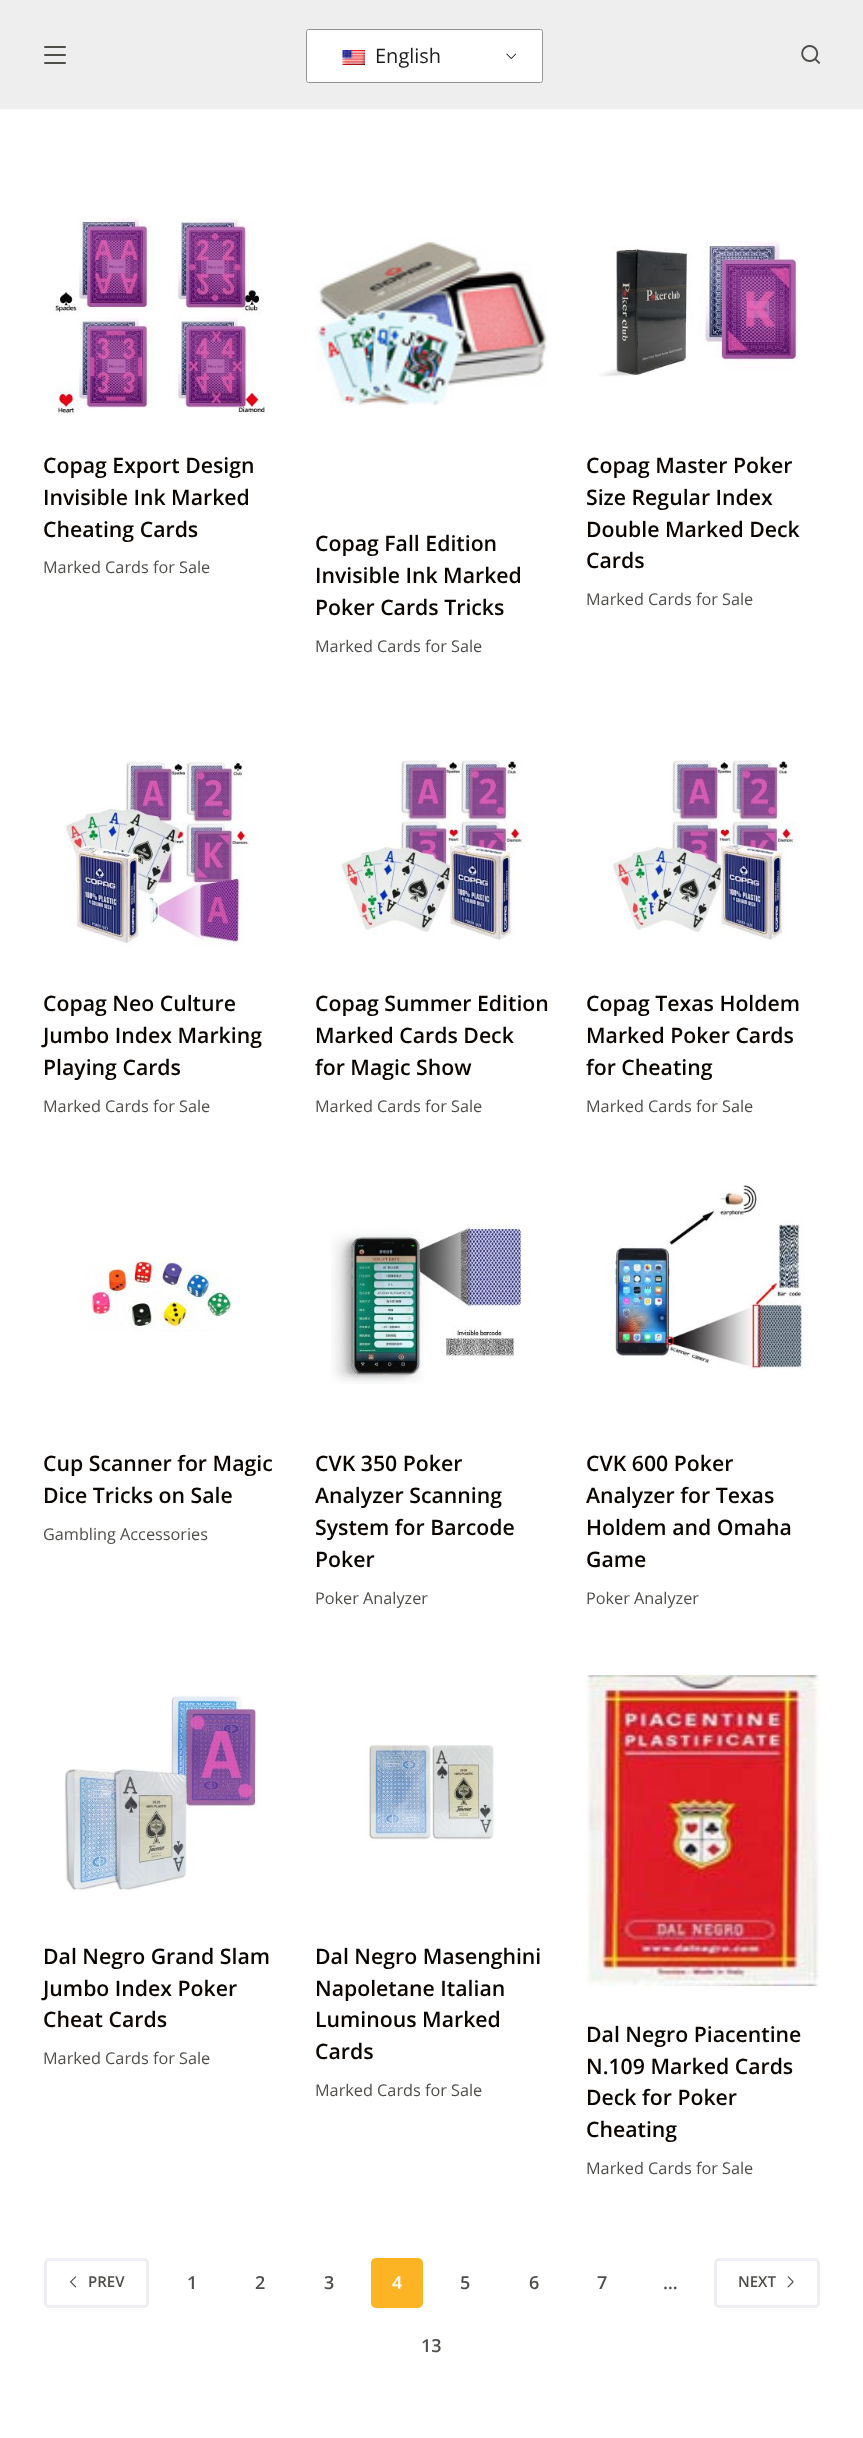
<svg xmlns="http://www.w3.org/2000/svg" width="863" height="2438">
<style>
.a{font:20px Open Sans;fill:#1e1e1e}
.b{font:600 21.25px Open Sans;fill:#0a0500}
.c{font:16.25px Open Sans;fill:#504e4a}
.d{font:600 15px Open Sans;fill:#504e4a}
.e{font:600 18px Open Sans;fill:#504e4a}
.f{font:600 18px Open Sans;fill:#fff}
</style>
<rect width="100%" height="100%" fill="#fff"/>
<path fill="#eee" d="M0 0h863v109H0z"/>
<rect fill="#504e4a" x="44" y="46" width="22" height="2" rx="1"/>
<rect fill="#504e4a" x="44" y="54" width="22" height="2" rx="1"/>
<rect fill="#504e4a" x="44" y="62" width="22" height="2" rx="1"/>
<rect fill="#fff" x="306" y="29" width="237" height="54" rx="2.5"/>
<image href="1.png" x="506" y="53" width="10" height="6"/>
<rect fill="none" stroke="#949494" x="306.5" y="29.5" width="236" height="53" rx="2"/>
<image href="2.png" x="342" y="50" width="23" height="15"/>
<image href="3.png" x="801" y="45" width="19" height="19"/>
<image href="4.png" x="50" y="218" width="219" height="196"/>
<image href="5.png" x="599" y="241" width="199" height="136"/>
<image href="6.png" x="315" y="237" width="233" height="169"/>
<image href="7.png" x="66" y="760" width="190" height="187"/>
<image href="8.png" x="340" y="760" width="187" height="181"/>
<image href="9.png" x="611" y="760" width="187" height="181"/>
<image href="10.png" x="87" y="1257" width="145" height="75"/>
<image href="11.png" x="331" y="1220" width="196" height="164"/>
<image href="12.png" x="611" y="1183" width="194" height="187"/>
<image href="13.png" x="64" y="1693" width="192" height="199"/>
<image href="14.png" x="365" y="1744" width="131" height="97"/>
<image href="15.png" x="586" y="1675" width="234" height="311"/>
<rect fill="none" stroke="#edeff2" stroke-width="3" x="45.5" y="2259.5" width="102" height="47" rx="3.5"/>
<image href="16.png" x="70" y="2276" width="7" height="12"/>
<rect fill="#fcb424" x="371" y="2258" width="52" height="50" rx="5"/>
<rect fill="none" stroke="#edeff2" stroke-width="3" x="715.5" y="2259.5" width="103" height="47" rx="3.5"/>
<image href="17.png" x="787" y="2276" width="7" height="12"/>
<text class="a" x="375" y="63">English</text>
<text class="b" x="43" y="473">Copag Export Design</text>
<text class="b" x="43" y="505">Invisible Ink Marked</text>
<text class="b" x="43" y="537">Cheating Cards</text>
<text class="c" x="43" y="573">Marked Cards for Sale</text>
<text class="b" x="586" y="473">Copag Master Poker</text>
<text class="b" x="586" y="505">Size Regular Index</text>
<text class="b" x="586" y="537">Double Marked Deck</text>
<text class="b" x="586" y="568">Cards</text>
<text class="c" x="586" y="605">Marked Cards for Sale</text>
<text class="b" x="315" y="551">Copag Fall Edition</text>
<text class="b" x="315" y="583">Invisible Ink Marked</text>
<text class="b" x="315" y="615">Poker Cards Tricks</text>
<text class="c" x="315" y="652">Marked Cards for Sale</text>
<text class="b" x="43" y="1011">Copag Neo Culture</text>
<text class="b" x="43" y="1043">Jumbo Index Marking</text>
<text class="b" x="43" y="1075">Playing Cards</text>
<text class="c" x="43" y="1112">Marked Cards for Sale</text>
<text class="b" x="315" y="1011">Copag Summer Edition</text>
<text class="b" x="315" y="1043">Marked Cards Deck</text>
<text class="b" x="315" y="1075">for Magic Show</text>
<text class="c" x="315" y="1112">Marked Cards for Sale</text>
<text class="b" x="586" y="1011">Copag Texas Holdem</text>
<text class="b" x="586" y="1043">Marked Poker Cards</text>
<text class="b" x="586" y="1075">for Cheating</text>
<text class="c" x="586" y="1112">Marked Cards for Sale</text>
<text class="b" x="43" y="1471">Cup Scanner for Magic</text>
<text class="b" x="43" y="1503">Dice Tricks on Sale</text>
<text class="c" x="43" y="1540">Gambling Accessories</text>
<text class="b" x="315" y="1471">CVK 350 Poker</text>
<text class="b" x="315" y="1503">Analyzer Scanning</text>
<text class="b" x="315" y="1535">System for Barcode</text>
<text class="b" x="315" y="1567">Poker</text>
<text class="c" x="315" y="1604">Poker Analyzer</text>
<text class="b" x="586" y="1471">CVK 600 Poker</text>
<text class="b" x="586" y="1503">Analyzer for Texas</text>
<text class="b" x="586" y="1535">Holdem and Omaha</text>
<text class="b" x="586" y="1567">Game</text>
<text class="c" x="586" y="1604">Poker Analyzer</text>
<text class="b" x="43" y="1964">Dal Negro Grand Slam</text>
<text class="b" x="43" y="1996">Jumbo Index Poker</text>
<text class="b" x="43" y="2027">Cheat Cards</text>
<text class="c" x="43" y="2064">Marked Cards for Sale</text>
<text class="b" x="315" y="1964">Dal Negro Masenghini</text>
<text class="b" x="315" y="1996">Napoletane Italian</text>
<text class="b" x="315" y="2027">Luminous Marked</text>
<text class="b" x="315" y="2059">Cards</text>
<text class="c" x="315" y="2096">Marked Cards for Sale</text>
<text class="b" x="586" y="2042">Dal Negro Piacentine</text>
<text class="b" x="586" y="2074">N.109 Marked Cards</text>
<text class="b" x="586" y="2105">Deck for Poker</text>
<text class="b" x="586" y="2137">Cheating</text>
<text class="c" x="586" y="2174">Marked Cards for Sale</text>
<text class="d" x="88" y="2287">PREV</text>
<text class="e" x="187" y="2289">1</text>
<text class="e" x="255" y="2289">2</text>
<text class="e" x="324" y="2289">3</text>
<text class="f" x="392" y="2289">4</text>
<text class="e" x="460" y="2289">5</text>
<text class="e" x="529" y="2289">6</text>
<text class="e" x="597" y="2289">7</text>
<text class="e" x="663" y="2289">…</text>
<text class="e" x="421" y="2352">13</text>
<text class="d" x="738" y="2287">NEXT</text>
</svg>
